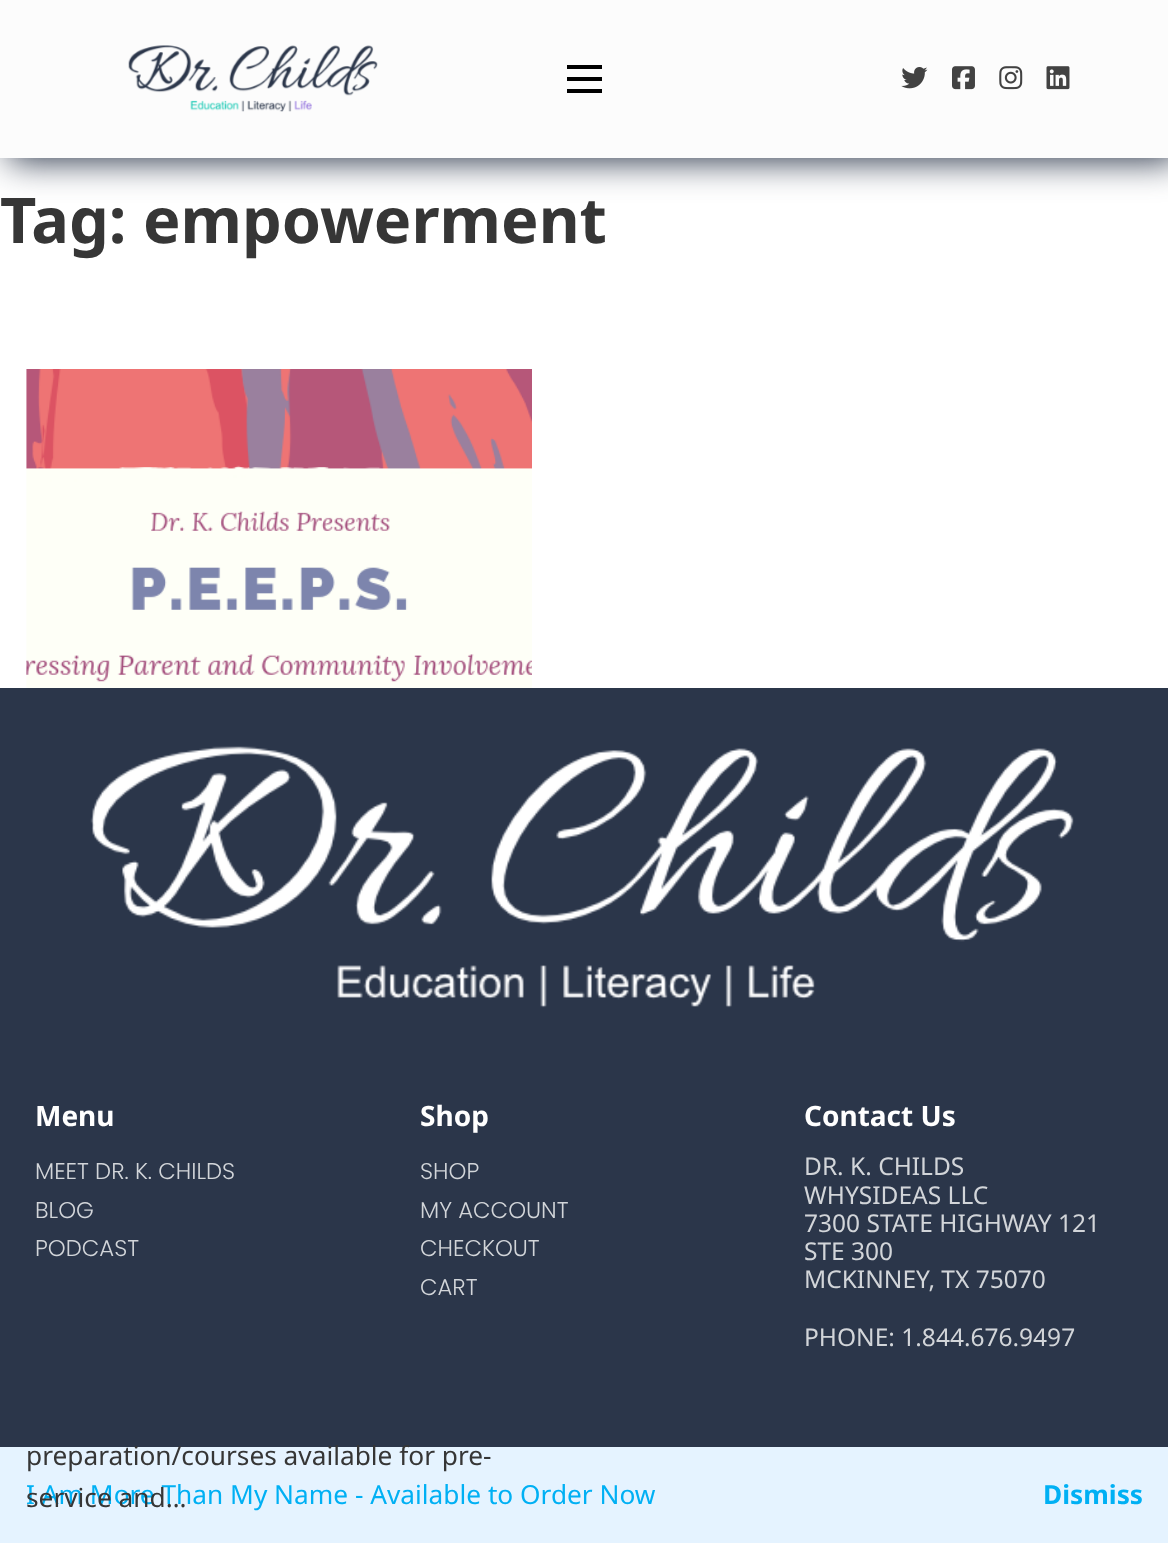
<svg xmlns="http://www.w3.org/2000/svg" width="1168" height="1543">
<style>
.a{font:bold 63px Noto Sans;fill:#363636}
.b{font:bold 28px Noto Sans;fill:#fff}
.c{font:300 22.75px Poppins;fill:#d2d5d9}
.d{font:24.5px Noto Sans;fill:#d2d5d9}
.e{font:26.25px Noto Sans;fill:#363636}
.f{font:26.25px Noto Sans;fill:#00b0f4}
.g{font:bold 26.25px Noto Sans;fill:#00b0f4}
</style>
<defs>
<clipPath id="clip1"><path d="M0 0h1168v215h-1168zm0 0h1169v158h-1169z" clip-rule="evenodd"/></clipPath>
</defs>
<rect width="100%" height="100%" fill="#fff"/>
<g clip-path="url(#clip1)">
<path fill="#2b364a" filter="blur(17.5px)" d="M9 4h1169v157H9z"/>
</g>
<path fill="#f7f7f75c" d="M0 0h1168v158H0z"/>
<image href="1.png" x="128" y="45" width="250" height="67"/>
<path fill="#000" d="M567 65h35v4H567z"/>
<path fill="#000" d="M567 77h35v4H567z"/>
<path fill="#000" d="M567 89h35v4H567z"/>
<image href="2.png" x="901" y="67" width="27" height="22"/>
<image href="3.png" x="952" y="66" width="23" height="24"/>
<image href="4.png" x="999" y="66" width="24" height="24"/>
<image href="5.png" x="1046" y="66" width="24" height="24"/>
<path fill="#2b364a" d="M0 688h1168v759H0z"/>
<image href="6.png" x="90" y="746" width="984" height="262"/>
<image href="7.png" x="26" y="369" width="506" height="319"/>
<path fill="#e5f3ff" d="M0 1447h1168v96H0z"/>
<text class="a" x="0" y="243">Tag: empowerment</text>
<text class="b" x="35" y="1126">Menu</text>
<text class="c" x="35" y="1179">MEET DR. K. CHILDS</text>
<text class="c" x="35" y="1218">BLOG</text>
<text class="c" x="35" y="1256">PODCAST</text>
<text class="b" x="420" y="1126">Shop</text>
<text class="c" x="420" y="1179">SHOP</text>
<text class="c" x="420" y="1218">MY ACCOUNT</text>
<text class="c" x="420" y="1256">CHECKOUT</text>
<text class="c" x="420" y="1295">CART</text>
<text class="b" x="804" y="1126">Contact Us</text>
<text class="d" x="804" y="1175">DR. K. CHILDS</text>
<text class="d" x="804" y="1204">WHYSIDEAS LLC</text>
<text class="d" x="804" y="1232">7300 STATE HIGHWAY 121</text>
<text class="d" x="804" y="1260">STE 300</text>
<text class="d" x="804" y="1288">MCKINNEY, TX 75070</text>
<text class="d" x="804" y="1346">PHONE: 1.844.676.9497</text>
<text class="e" x="26" y="1465">preparation/courses available for pre-</text>
<text class="f" x="26" y="1504">I Am More Than My Name - Available to Order Now</text>
<text class="e" x="26" y="1507">service and…</text>
<text class="g" x="1043" y="1504">Dismiss</text>
</svg>
